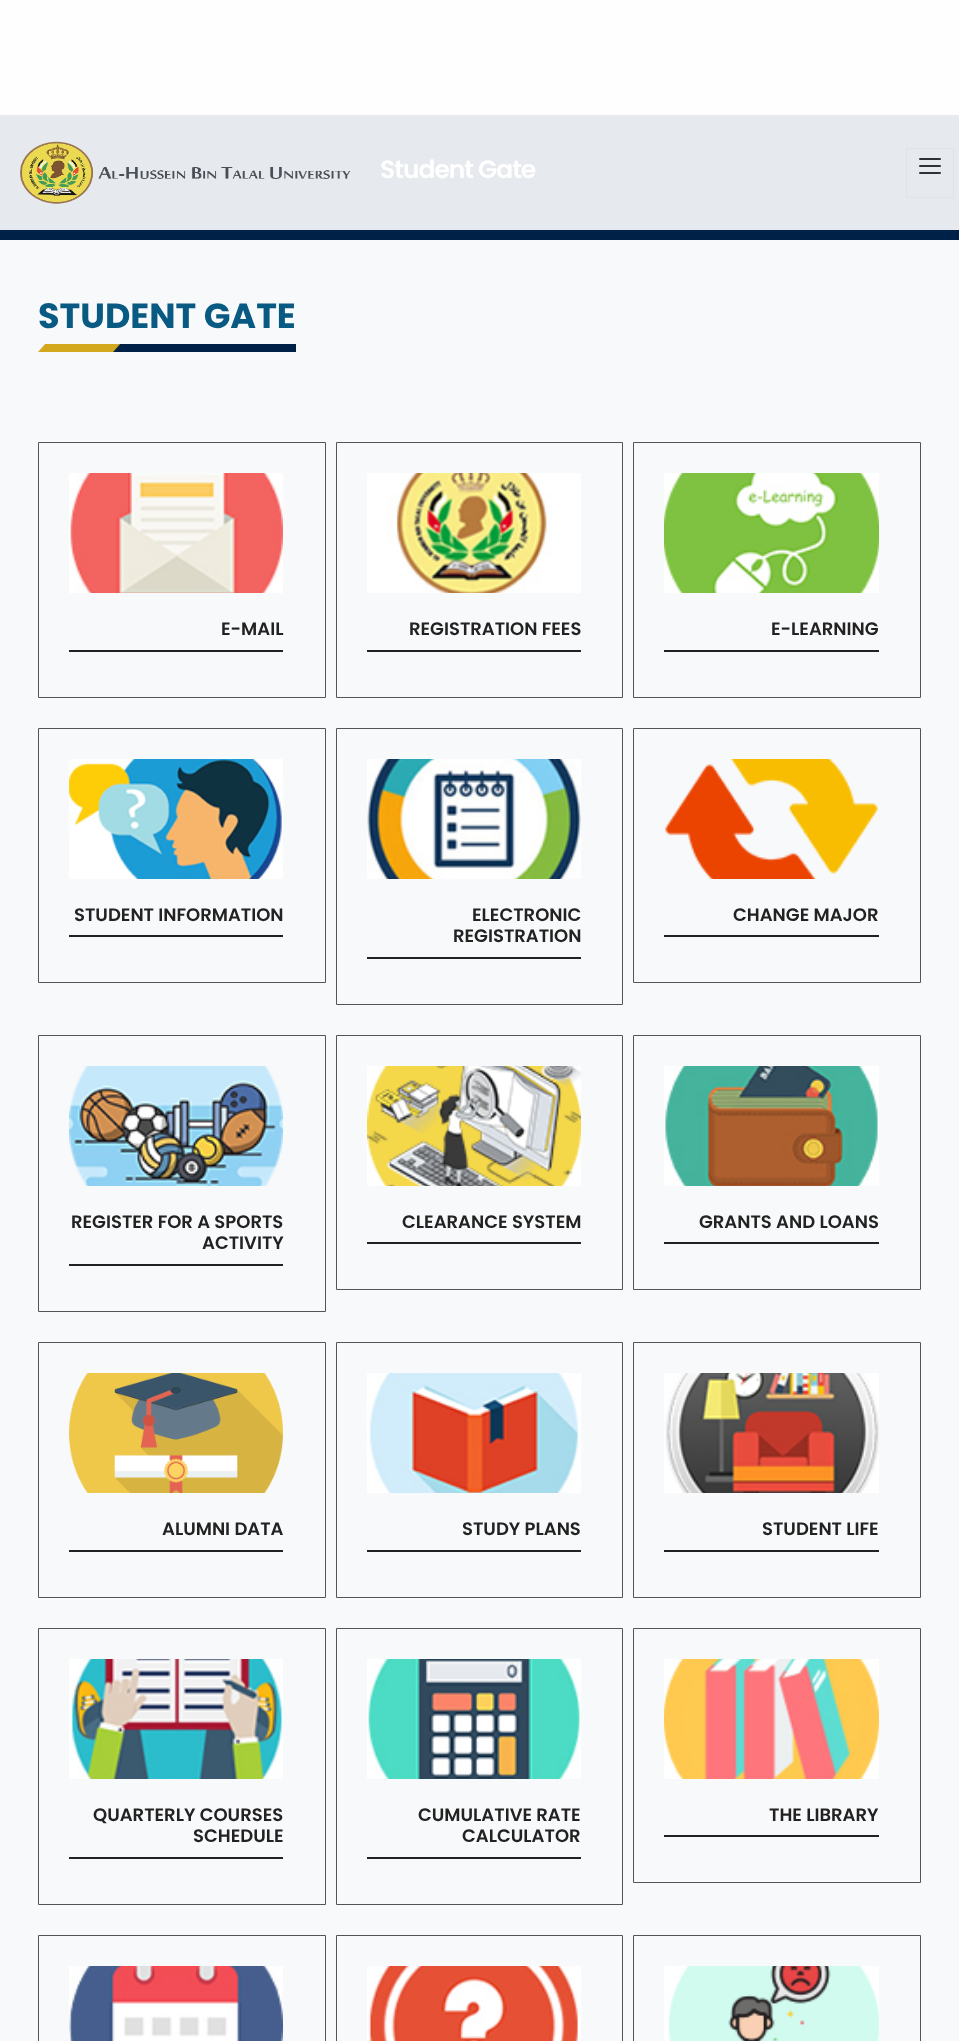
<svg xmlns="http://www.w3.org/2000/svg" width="959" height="2041">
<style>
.a{font:600 25px Poppins;letter-spacing:-1px;fill:#fff}
.b{font:bold 35px Poppins;fill:#095a83}
.c{font:600 18px Poppins;fill:#222}
</style>
<rect width="100%" height="100%" fill="#fefefe"/>
<path fill="#e6e9ed" d="M0 115h959v115H0z"/>
<image href="1.png" x="20" y="141" width="331" height="63"/>
<path fill="none" stroke="#dfe2e6" d="M906.5 148.5h47v49H906.5z"/>
<rect fill="#2e3135" x="919" y="158" width="22" height="2" rx="1"/>
<rect fill="#2e3135" x="919" y="165" width="22" height="2" rx="1"/>
<rect fill="#2e3135" x="919" y="172" width="22" height="2" rx="1"/>
<path fill="#002147" d="M0 230h959v10H0z"/>
<path fill="#f8f9fa" d="M0 240h959v1801H0z"/>
<image href="2.png" x="38" y="344" width="258" height="8"/>
<path fill="none" stroke="#555" d="M38.5 442.5h287v255H38.5z"/>
<image href="3.png" x="69" y="473" width="214" height="120"/>
<path fill="#222" d="M69 650h214v2H69z"/>
<path fill="none" stroke="#555" d="M336.5 442.5h286v255H336.5z"/>
<image href="4.png" x="367" y="473" width="214" height="120"/>
<path fill="#222" d="M367 650h214v2H367z"/>
<path fill="none" stroke="#555" d="M633.5 442.5h287v255H633.5z"/>
<image href="5.png" x="664" y="473" width="215" height="120"/>
<path fill="#222" d="M664 650h215v2H664z"/>
<path fill="none" stroke="#555" d="M38.5 728.5h287v254H38.5z"/>
<image href="6.png" x="69" y="759" width="214" height="120"/>
<path fill="#222" d="M69 935h214v2H69z"/>
<path fill="none" stroke="#555" d="M336.5 728.5h286v276H336.5z"/>
<image href="7.png" x="367" y="759" width="214" height="120"/>
<path fill="#222" d="M367 957h214v2H367z"/>
<path fill="none" stroke="#555" d="M633.5 728.5h287v254H633.5z"/>
<image href="8.png" x="665" y="759" width="213" height="120"/>
<path fill="#222" d="M664 935h215v2H664z"/>
<path fill="none" stroke="#555" d="M38.5 1035.5h287v276H38.5z"/>
<image href="9.png" x="69" y="1066" width="214" height="120"/>
<path fill="#222" d="M69 1264h214v2H69z"/>
<path fill="none" stroke="#555" d="M336.5 1035.5h286v254H336.5z"/>
<image href="10.png" x="367" y="1066" width="214" height="120"/>
<path fill="#222" d="M367 1242h214v2H367z"/>
<path fill="none" stroke="#555" d="M633.5 1035.5h287v254H633.5z"/>
<image href="11.png" x="664" y="1066" width="215" height="120"/>
<path fill="#222" d="M664 1242h215v2H664z"/>
<path fill="none" stroke="#555" d="M38.5 1342.5h287v255H38.5z"/>
<image href="12.png" x="69" y="1373" width="214" height="120"/>
<path fill="#222" d="M69 1550h214v2H69z"/>
<path fill="none" stroke="#555" d="M336.5 1342.5h286v255H336.5z"/>
<image href="13.png" x="367" y="1373" width="214" height="120"/>
<path fill="#222" d="M367 1550h214v2H367z"/>
<path fill="none" stroke="#555" d="M633.5 1342.5h287v255H633.5z"/>
<image href="14.png" x="664" y="1373" width="215" height="120"/>
<path fill="#222" d="M664 1550h215v2H664z"/>
<path fill="none" stroke="#555" d="M38.5 1628.5h287v276H38.5z"/>
<image href="15.png" x="69" y="1659" width="214" height="120"/>
<path fill="#222" d="M69 1857h214v2H69z"/>
<path fill="none" stroke="#555" d="M336.5 1628.5h286v276H336.5z"/>
<image href="16.png" x="367" y="1659" width="214" height="120"/>
<path fill="#222" d="M367 1857h214v2H367z"/>
<path fill="none" stroke="#555" d="M633.5 1628.5h287v254H633.5z"/>
<image href="17.png" x="664" y="1659" width="215" height="120"/>
<path fill="#222" d="M664 1835h215v2H664z"/>
<path fill="none" stroke="#555" d="M38.5 1935.5h287v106H38.5z"/>
<image href="18.png" x="69" y="1966" width="214" height="75"/>
<path fill="none" stroke="#555" d="M336.5 1935.5h286v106H336.5z"/>
<image href="19.png" x="367" y="1966" width="214" height="75"/>
<path fill="none" stroke="#555" d="M633.5 1935.5h287v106H633.5z"/>
<image href="20.png" x="664" y="1966" width="215" height="75"/>
<text class="a" x="380" y="178">Student Gate</text>
<text class="b" x="38" y="328">STUDENT GATE</text>
<text class="c" x="221" y="635">E-MAIL</text>
<text class="c" x="409" y="635">REGISTRATION FEES</text>
<text class="c" x="771" y="635">E-LEARNING</text>
<text class="c" x="74" y="921">STUDENT INFORMATION</text>
<text class="c" x="472" y="921">ELECTRONIC</text>
<text class="c" x="453" y="942">REGISTRATION</text>
<text class="c" x="733" y="921">CHANGE MAJOR</text>
<text class="c" x="71" y="1228">REGISTER FOR A SPORTS</text>
<text class="c" x="202" y="1249">ACTIVITY</text>
<text class="c" x="402" y="1228">CLEARANCE SYSTEM</text>
<text class="c" x="699" y="1228">GRANTS AND LOANS</text>
<text class="c" x="162" y="1535">ALUMNI DATA</text>
<text class="c" x="462" y="1535">STUDY PLANS</text>
<text class="c" x="762" y="1535">STUDENT LIFE</text>
<text class="c" x="93" y="1821">QUARTERLY COURSES</text>
<text class="c" x="193" y="1842">SCHEDULE</text>
<text class="c" x="418" y="1821">CUMULATIVE RATE</text>
<text class="c" x="462" y="1842">CALCULATOR</text>
<text class="c" x="769" y="1821">THE LIBRARY</text>
</svg>
